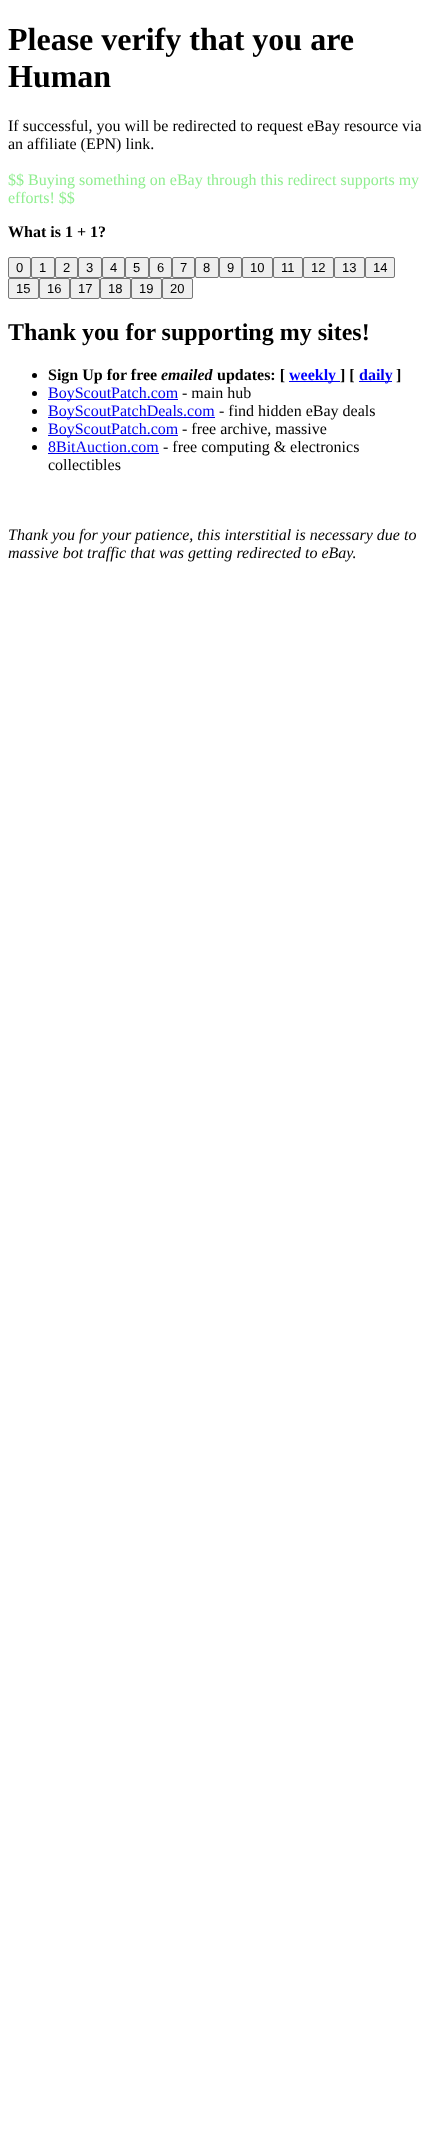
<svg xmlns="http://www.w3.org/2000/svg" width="433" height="2144">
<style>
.a{font:bold 32px Liberation Serif;fill:#000}
.b{font:16px Liberation Serif;fill:#000}
.c{font:16px Liberation Serif;fill:#90ee90}
.d{font:bold 16px Liberation Serif;fill:#000}
.e{font:13px Liberation Sans;fill:#000}
.f{font:bold 24px Liberation Serif;fill:#000}
.g{font:italic bold 16px Liberation Serif;fill:#000}
.h{font:bold 16px Liberation Serif;fill:#00f}
.i{font:bold 16px Liberation Serif;fill:#00e}
.j{font:16px Liberation Serif;fill:#00e}
.k{font:italic 16px Liberation Serif;fill:#000}
</style>
<rect width="100%" height="100%" fill="#fff"/>
<rect fill="#efefef" stroke="#767676" x="8.5" y="257.5" width="22" height="20" rx="1.5"/>
<rect fill="#efefef" stroke="#767676" x="31.5" y="257.5" width="23" height="20" rx="1.5"/>
<rect fill="#efefef" stroke="#767676" x="55.5" y="257.5" width="22" height="20" rx="1.5"/>
<rect fill="#efefef" stroke="#767676" x="78.5" y="257.5" width="23" height="20" rx="1.5"/>
<rect fill="#efefef" stroke="#767676" x="102.5" y="257.5" width="22" height="20" rx="1.5"/>
<rect fill="#efefef" stroke="#767676" x="125.5" y="257.5" width="23" height="20" rx="1.5"/>
<rect fill="#efefef" stroke="#767676" x="149.5" y="257.5" width="22" height="20" rx="1.5"/>
<rect fill="#efefef" stroke="#767676" x="172.5" y="257.5" width="22" height="20" rx="1.5"/>
<rect fill="#efefef" stroke="#767676" x="195.5" y="257.5" width="23" height="20" rx="1.5"/>
<rect fill="#efefef" stroke="#767676" x="219.5" y="257.5" width="22" height="20" rx="1.5"/>
<rect fill="#efefef" stroke="#767676" x="242.5" y="257.5" width="30" height="20" rx="1.5"/>
<rect fill="#efefef" stroke="#767676" x="273.5" y="257.5" width="29" height="20" rx="1.5"/>
<rect fill="#efefef" stroke="#767676" x="303.5" y="257.5" width="30" height="20" rx="1.5"/>
<rect fill="#efefef" stroke="#767676" x="334.5" y="257.5" width="30" height="20" rx="1.5"/>
<rect fill="#efefef" stroke="#767676" x="365.5" y="257.5" width="29" height="20" rx="1.5"/>
<rect fill="#efefef" stroke="#767676" x="8.5" y="278.5" width="30" height="20" rx="1.5"/>
<rect fill="#efefef" stroke="#767676" x="39.5" y="278.5" width="30" height="20" rx="1.5"/>
<rect fill="#efefef" stroke="#767676" x="70.5" y="278.5" width="29" height="20" rx="1.5"/>
<rect fill="#efefef" stroke="#767676" x="100.5" y="278.5" width="30" height="20" rx="1.5"/>
<rect fill="#efefef" stroke="#767676" x="131.5" y="278.5" width="30" height="20" rx="1.5"/>
<rect fill="#efefef" stroke="#767676" x="162.5" y="278.5" width="30" height="20" rx="1.5"/>
<circle fill="#000" cx="34.5" cy="375.5" r="2.5"/>
<path fill="#00e" d="M289 381h51v1H289z"/>
<path fill="#00e" d="M359 381h33v1H359z"/>
<circle fill="#000" cx="34.5" cy="393.5" r="2.5"/>
<path fill="#00e" d="M48 399h130v1H48z"/>
<circle fill="#000" cx="34.5" cy="411.5" r="2.5"/>
<path fill="#00e" d="M48 417h167v1H48z"/>
<circle fill="#000" cx="34.5" cy="429.5" r="2.5"/>
<path fill="#00e" d="M48 435h130v1H48z"/>
<circle fill="#000" cx="34.5" cy="447.5" r="2.5"/>
<path fill="#00e" d="M48 453h111v1H48z"/>
<text class="a" x="8" y="50">Please verify that you are</text>
<text class="a" x="8" y="87">Human</text>
<text class="b" x="8" y="131">If successful, you will be redirected to request eBay resource via</text>
<text class="b" x="8" y="149">an affiliate (EPN) link.</text>
<text class="c" x="8" y="185">$$ Buying something on eBay through this redirect supports my</text>
<text class="c" x="8" y="203">efforts! $$</text>
<text class="d" x="8" y="237">What is 1 + 1?</text>
<text class="e" x="16" y="272">0</text>
<text class="e" x="39" y="272">1</text>
<text class="e" x="63" y="272">2</text>
<text class="e" x="86" y="272">3</text>
<text class="e" x="110" y="272">4</text>
<text class="e" x="133" y="272">5</text>
<text class="e" x="157" y="272">6</text>
<text class="e" x="180" y="272">7</text>
<text class="e" x="203" y="272">8</text>
<text class="e" x="227" y="272">9</text>
<text class="e" x="250" y="272">10</text>
<text class="e" x="281" y="272">11</text>
<text class="e" x="311" y="272">12</text>
<text class="e" x="342" y="272">13</text>
<text class="e" x="373" y="272">14</text>
<text class="e" x="16" y="293">15</text>
<text class="e" x="47" y="293">16</text>
<text class="e" x="78" y="293">17</text>
<text class="e" x="108" y="293">18</text>
<text class="e" x="139" y="293">19</text>
<text class="e" x="170" y="293">20</text>
<text class="f" x="8" y="340">Thank you for supporting my sites!</text>
<text class="d" x="48" y="380">Sign Up for free</text>
<text class="g" x="161" y="380">emailed</text>
<text class="d" x="217" y="380">updates: [</text>
<text class="h" x="289" y="380">weekly</text>
<text class="d" x="340" y="380">] [</text>
<text class="i" x="359" y="380">daily</text>
<text class="d" x="396" y="380">]</text>
<text class="j" x="48" y="398">BoyScoutPatch.com</text>
<text class="b" x="182" y="398">- main hub</text>
<text class="j" x="48" y="416">BoyScoutPatchDeals.com</text>
<text class="b" x="219" y="416">- find hidden eBay deals</text>
<text class="j" x="48" y="434">BoyScoutPatch.com</text>
<text class="b" x="182" y="434">- free archive, massive</text>
<text class="j" x="48" y="452">8BitAuction.com</text>
<text class="b" x="163" y="452">- free computing &amp; electronics</text>
<text class="b" x="48" y="470">collectibles</text>
<text class="k" x="8" y="540">Thank you for your patience, this interstitial is necessary due to</text>
<text class="k" x="8" y="558">massive bot traffic that was getting redirected to eBay.</text>
</svg>
